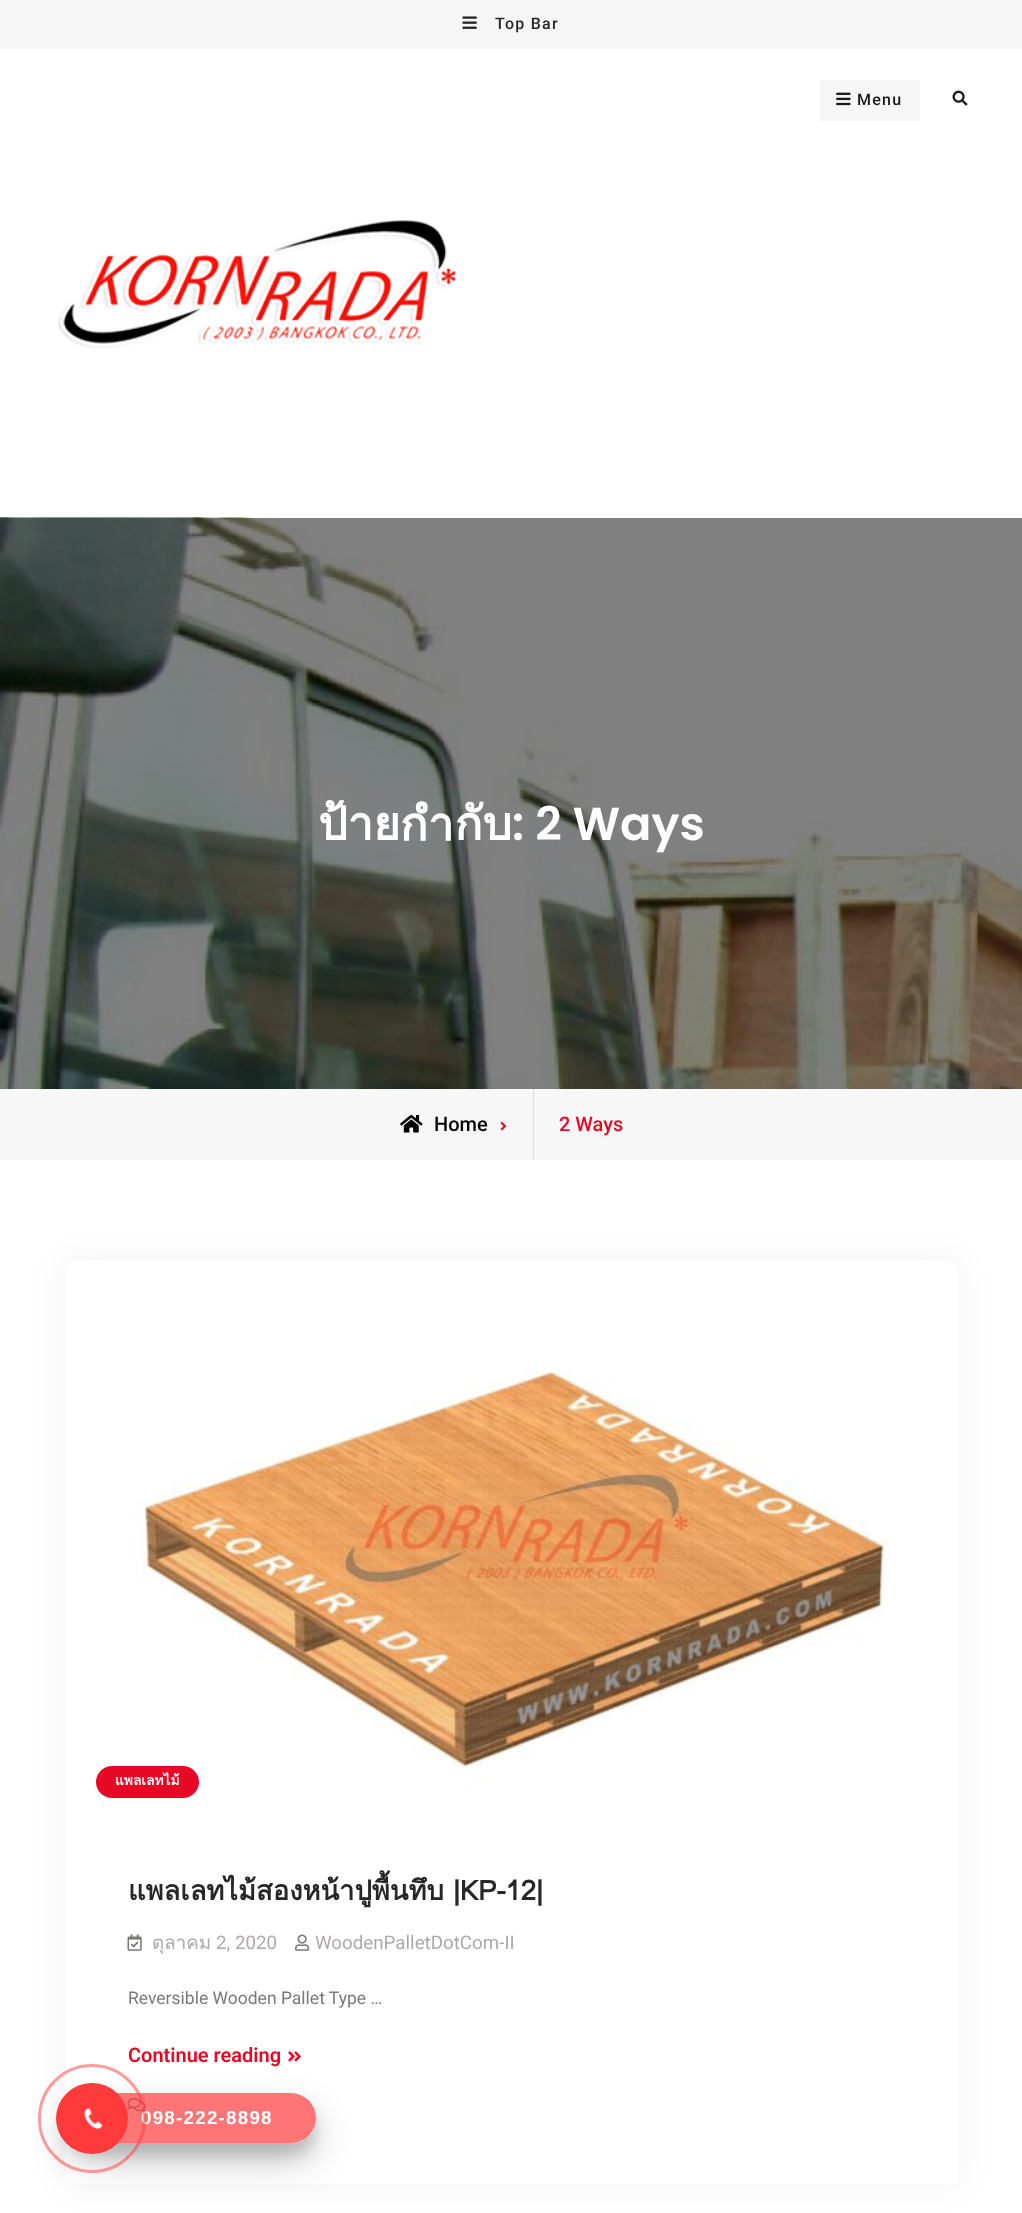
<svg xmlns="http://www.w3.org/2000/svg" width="1022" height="2213">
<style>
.a{font:500 16px Roboto;letter-spacing:1.25px;fill:#272727}
.b{font:500 16px Roboto;letter-spacing:1.25px;fill:#1a1a1a}
.c{font:bold 46.25px Loma;fill:#fff}
.d{font:600 46.25px Poppins;fill:#fff}
.e{font:500 20px Roboto;fill:#000}
.f{font:500 20px Roboto;fill:#e70826}
.g{font:bold 13.75px Loma;fill:#fff}
.h{font:bold 27.3px Loma;fill:#272727}
.i{font:18.75px Loma;fill:#ada9a9}
.j{font:18.75px Roboto;fill:#ada9a9}
.k{font:17.5px Roboto;fill:#797978}
.l{font:600 20px Roboto;fill:#e70826}
.m{font:bold 18.75px Liberation Sans;letter-spacing:1.25px;fill:#fff}
</style>
<defs>
<clipPath id="clip1"><path d="M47 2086h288v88h-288zm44 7h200c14 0 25 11 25 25c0 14-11 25-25 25h-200c-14 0-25-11-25-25c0-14 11-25 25-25z" clip-rule="evenodd"/></clipPath>
<clipPath id="clip2"><path d="M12 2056h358v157h-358zm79 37h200c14 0 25 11 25 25c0 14-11 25-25 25h-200c-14 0-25-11-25-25c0-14 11-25 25-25z" clip-rule="evenodd"/></clipPath>
</defs>
<rect width="100%" height="100%" fill="#fff"/>
<path fill="#f7f6f6" d="M0 0h1022v49H0z"/>
<image href="1.png" x="462" y="16" width="15" height="13"/>
<path fill="#f7f6f6" d="M820 80h100v41H820z"/>
<image href="2.png" x="836" y="92" width="15" height="14"/>
<image href="3.png" x="952" y="90" width="16" height="16"/>
<image href="4.png" x="57" y="219" width="400" height="130"/>
<image href="5.png" x="0" y="517" width="1022" height="572"/>
<path fill="#f7f7f7" d="M0 1089h1022v71H0z"/>
<path fill="#ddd" d="M533 1089h1v71H533z"/>
<image href="6.png" x="400" y="1115" width="23" height="18"/>
<image href="7.png" x="500" y="1121" width="7" height="10"/>
<rect fill="#7a7a7a1a" filter="blur(15px)" x="65" y="1260" width="893" height="924" rx="13"/>
<path fill="#fff" d="M78 1260h867c7 0 13 6 13 13v911h-893v-911c0-7 6-13 13-13z"/>
<image href="8.png" x="132" y="1369" width="760" height="411"/>
<rect fill="#e70826" x="96" y="1766" width="103" height="32" rx="16"/>
<image href="9.png" x="127" y="1934" width="15" height="17"/>
<image href="10.png" x="295" y="1934" width="15" height="17"/>
<image href="11.png" x="288" y="2051" width="13" height="11"/>
<image href="12.png" x="127" y="2098" width="19" height="15"/>
<g clip-path="url(#clip1)">
<rect fill="#0000001a" filter="blur(6px)" x="66" y="2105" width="250" height="50" rx="25"/>
</g>
<g clip-path="url(#clip2)">
<rect fill="#00000040" filter="blur(17.5px)" x="66" y="2110" width="250" height="50" rx="25"/>
</g>
<rect fill="#ff3a3ab3" x="66" y="2093" width="250" height="50" rx="25"/>
<text class="a" x="495" y="29">Top Bar</text>
<text class="b" x="857" y="105">Menu</text>
<text class="c" x="318" y="840">ป้ายกำกับ</text>
<text class="d" x="512" y="840">: 2 Ways</text>
<text class="e" x="434" y="1131">Home</text>
<text class="f" x="559" y="1131">2 Ways</text>
<text class="g" x="115" y="1785">แพลเลทไม้</text>
<text class="h" x="128" y="1900">แพลเลทไม้สองหน้าปูพื้นทึบ |KP-12|</text>
<text class="i" x="152" y="1949">ตุลาคม</text>
<text class="j" x="216" y="1949">2, 2020</text>
<text class="j" x="315" y="1949">WoodenPalletDotCom-II</text>
<text class="k" x="128" y="2004">Reversible Wooden Pallet Type …</text>
<text class="l" x="128" y="2062">Continue reading</text>
<text class="m" x="141" y="2124">098-222-8898</text>
<rect fill="none" stroke="#ff3a3a80" stroke-width="3" x="39.5" y="2065.5" width="105" height="106" rx="52.5"/>
<rect fill="#ff3a3a" x="56" y="2083" width="72" height="71" rx="35.5"/>
<image href="13.png" x="83" y="2108" width="20" height="22"/>
</svg>
